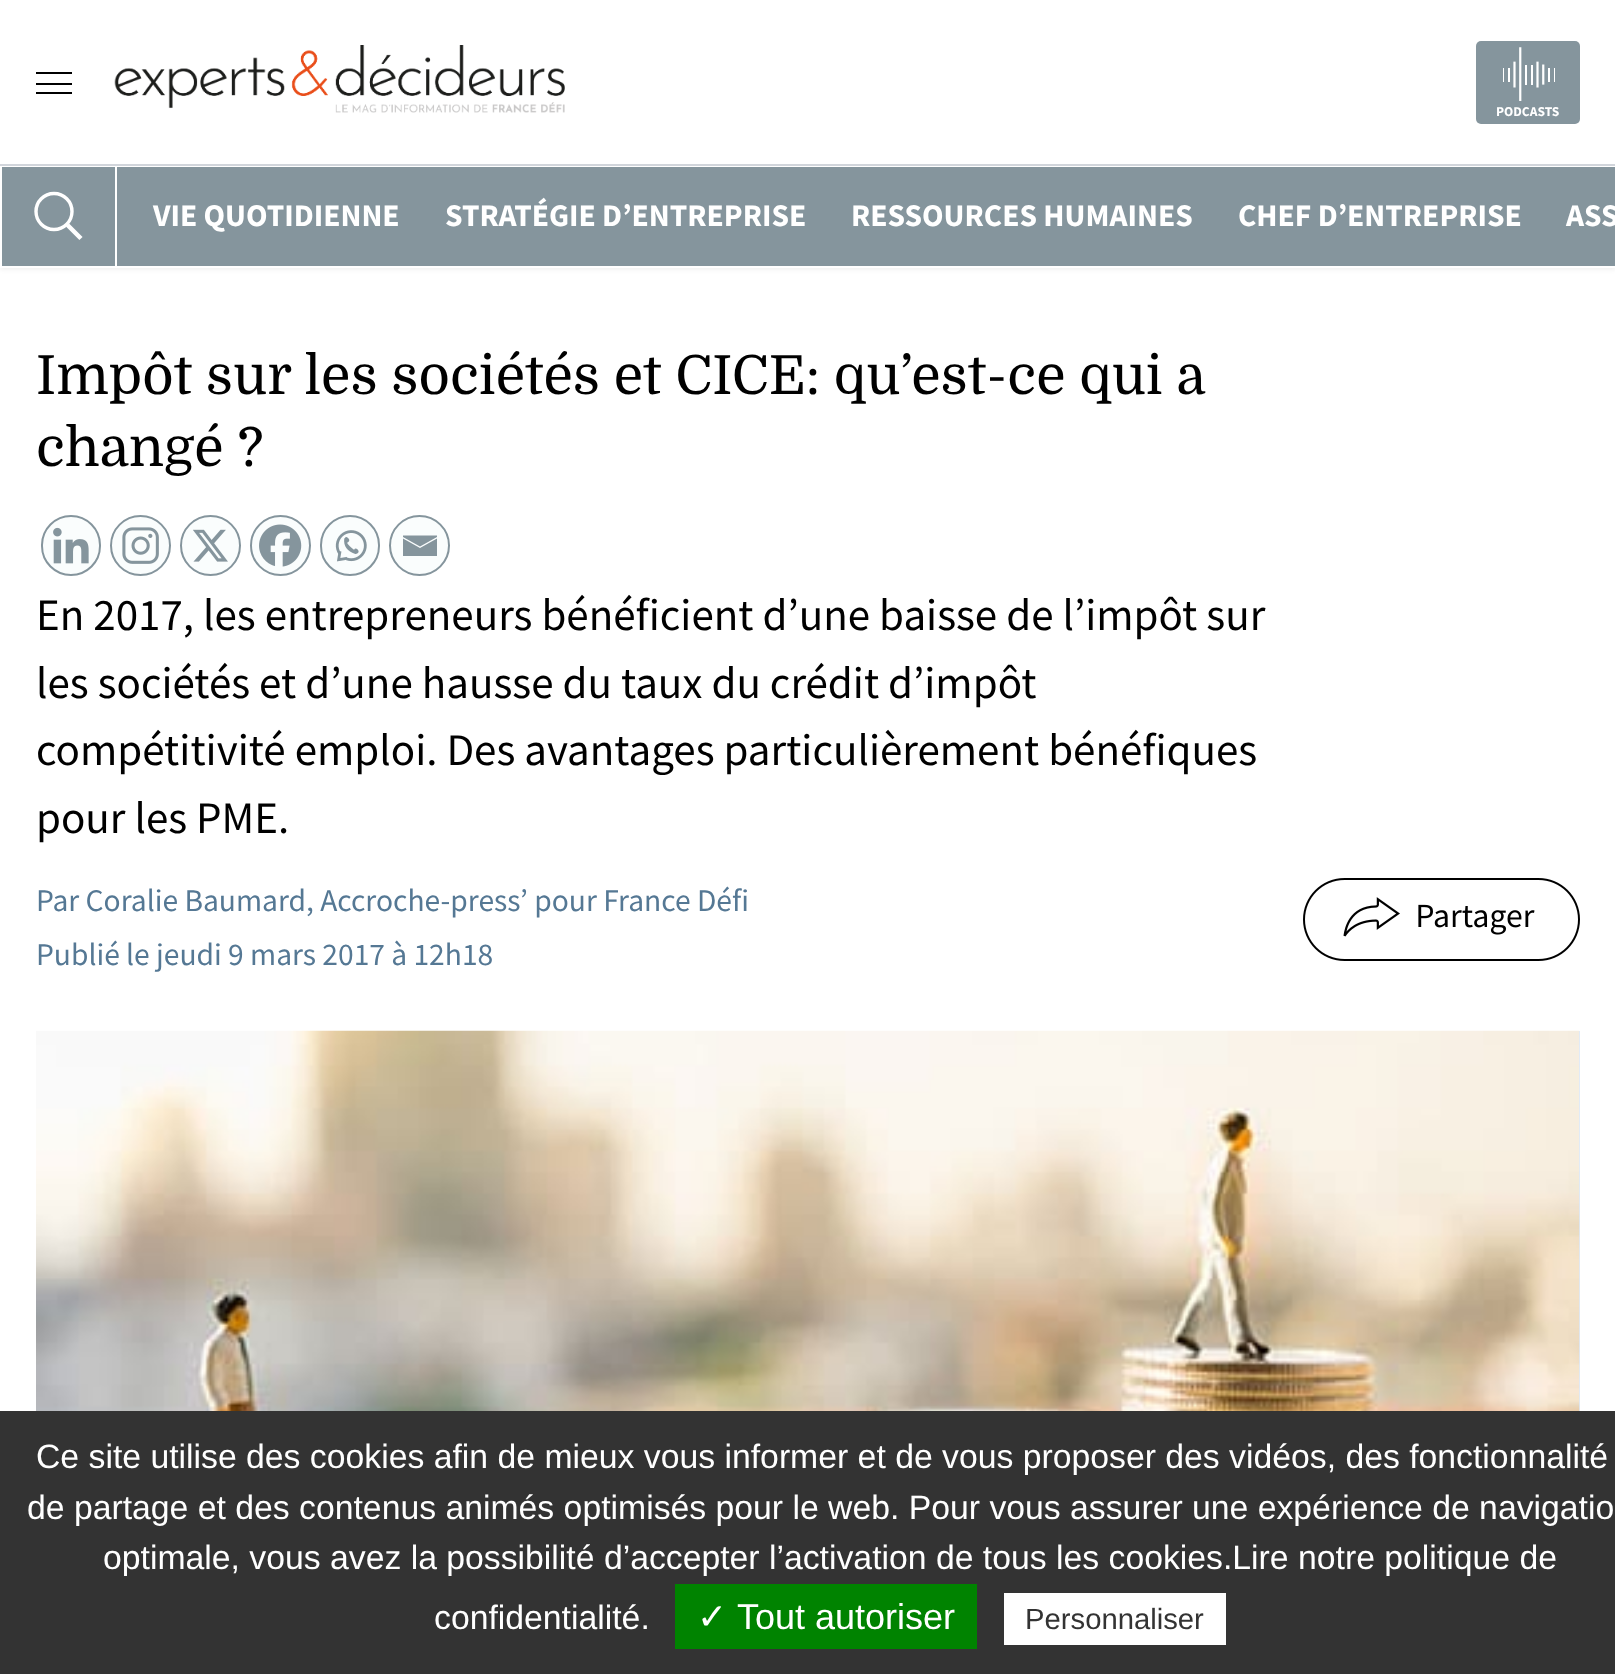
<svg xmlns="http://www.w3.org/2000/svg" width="1615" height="1674">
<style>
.a{font:bold 13.5px Source Sans Pro;fill:#fff}
.b{font:bold 31.5px Source Sans Pro;fill:#fff}
.c{font:54px Domine;fill:#000}
.d{font:45px Source Sans Pro;fill:#000}
.e{font:31.5px Source Sans Pro;fill:#557894}
.f{font:33.75px Liberation Sans;fill:#fff}
.g{font:36px DejaVu Sans;fill:#fff}
.h{font:36px Liberation Sans;fill:#fff}
.i{font:29.25px Liberation Sans;fill:#333}
</style>
<rect width="100%" height="100%" fill="#fff"/>
<path fill="#0000000d" filter="blur(2px)" d="M0 2h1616v268H0z"/>
<path fill="#fff" d="M0 0h1615v268H0z"/>
<path fill="#d1d5db" d="M0 164h1615v2H0z"/>
<path fill="#000" d="M36 72h36v2H36z"/>
<path fill="#000" d="M36 83h36v2H36z"/>
<path fill="#000" d="M36 92h36v2H36z"/>
<image href="1.png" x="114" y="45" width="451" height="68"/>
<rect fill="#85959d" x="1476" y="41" width="104" height="83" rx="5"/>
<image href="2.png" x="1503" y="47" width="52" height="54"/>
<path fill="#85959d" d="M2 167h1613v99H2z"/>
<circle fill="none" stroke="#fff" stroke-width="3.4" cx="54" cy="211.5" r="18"/>
<path fill="none" stroke="#fff" stroke-width="4.5" d="M67.5 225l13.5 13.5"/>
<path fill="#fff" d="M115 167h2v99H115z"/>
<rect fill="#fafdfd" stroke="#85959d" stroke-width="2" x="42" y="516" width="58" height="59" rx="29"/>
<image href="3.png" x="53" y="527" width="36" height="37"/>
<circle fill="#fafdfd" stroke="#85959d" stroke-width="2" cx="140.5" cy="545.5" r="29.5"/>
<image href="4.png" x="122" y="527" width="37" height="37"/>
<circle fill="#fafdfd" stroke="#85959d" stroke-width="2" cx="210.5" cy="545.5" r="29.5"/>
<image href="5.png" x="193" y="529" width="35" height="33"/>
<circle fill="#fafdfd" stroke="#85959d" stroke-width="2" cx="280.5" cy="545.5" r="29.5"/>
<image href="6.png" x="259" y="524" width="43" height="43"/>
<rect fill="#fafdfd" stroke="#85959d" stroke-width="2" x="321" y="516" width="58" height="59" rx="29"/>
<image href="7.png" x="335" y="530" width="32" height="32"/>
<circle fill="#fafdfd" stroke="#85959d" stroke-width="2" cx="419.5" cy="545.5" r="29.5"/>
<path fill="#85959d" d="M401.5 535.5h35.5v1.5l-17 9.5l-17-9.5v-1.5m0 3l17 9.5l17-9.5v17.5h-34v-17.5"/>
<image href="8.png" x="1303" y="878" width="277" height="83"/>
<path fill="#dbeafe" d="M1579 1031h1v380H1579z"/>
<image href="9.png" x="36" y="1030" width="1544" height="381"/>
<path fill="#333" d="M0 1411h1615v263H0z"/>
<path fill="#008300" d="M675 1584h302v65H675z"/>
<path fill="#fff" d="M1004 1593h222v52H1004z"/>
<text class="a" x="1496" y="116">PODCASTS</text>
<text class="b" x="153" y="226">VIE QUOTIDIENNE</text>
<text class="b" x="445" y="226">STRATÉGIE D’ENTREPRISE</text>
<text class="b" x="851" y="226">RESSOURCES HUMAINES</text>
<text class="b" x="1238" y="226">CHEF D’ENTREPRISE</text>
<text class="b" x="1566" y="226">ASS</text>
<text class="c" x="36" y="394">Impôt sur les sociétés et CICE: qu’est-ce qui a</text>
<text class="c" x="36" y="466">changé ?</text>
<text class="d" x="36" y="630">En 2017, les entrepreneurs bénéficient d’une baisse de l’impôt sur</text>
<text class="d" x="36" y="698">les sociétés et d’une hausse du taux du crédit d’impôt</text>
<text class="d" x="36" y="765">compétitivité emploi. Des avantages particulièrement bénéfiques</text>
<text class="d" x="36" y="833">pour les PME.</text>
<text class="e" x="36" y="911">Par Coralie Baumard, Accroche-press’ pour France Défi</text>
<text class="e" x="36" y="965">Publié le jeudi 9 mars 2017 à 12h18</text>
<text class="f" x="36" y="1468">Ce site utilise des cookies afin de mieux vous informer et de vous proposer des vidéos, des fonctionnalité</text>
<text class="f" x="27" y="1519">de partage et des contenus animés optimisés pour le web. Pour vous assurer une expérience de navigatio</text>
<text class="f" x="103" y="1569">optimale, vous avez la possibilité d’accepter l’activation de tous les cookies.Lire notre politique de</text>
<text class="f" x="434" y="1629">confidentialité.</text>
<text class="g" x="697" y="1629">✓</text>
<text class="h" x="737" y="1629">Tout autoriser</text>
<text class="i" x="1025" y="1629">Personnaliser</text>
</svg>
